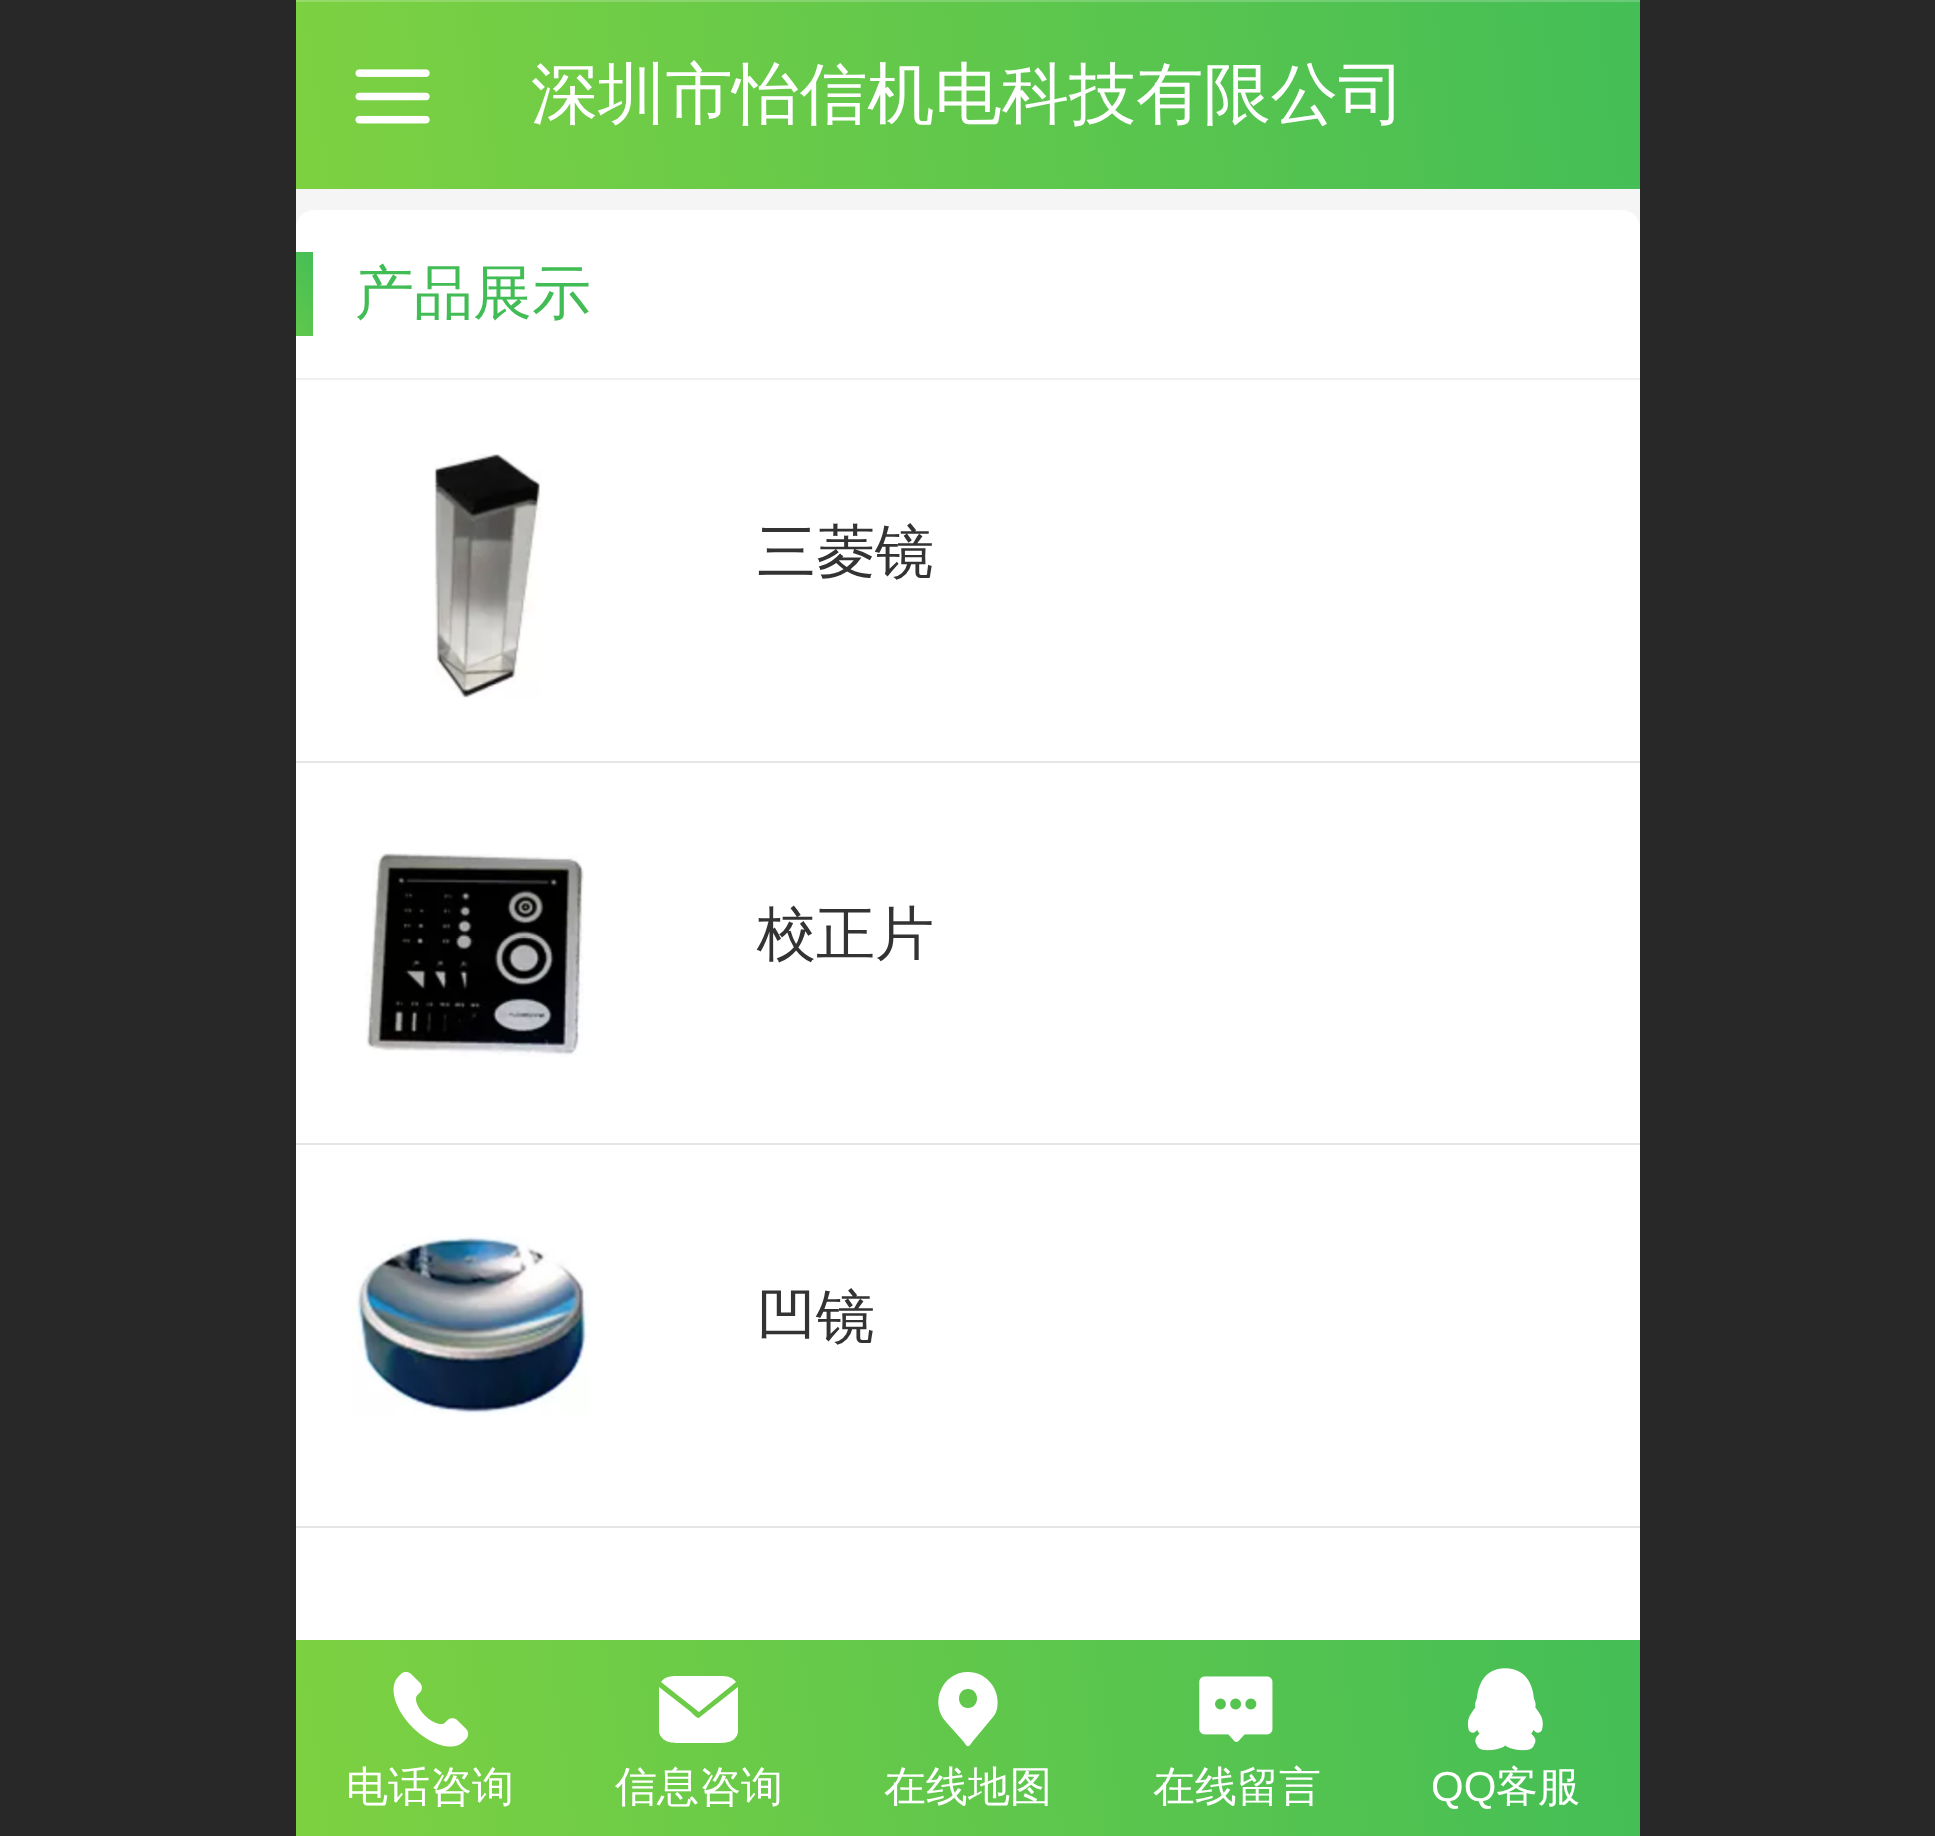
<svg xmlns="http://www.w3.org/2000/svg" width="1935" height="1836">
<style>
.a{font:500 67.25px WenQuanYi Zen Hei;fill:#fff}
.b{font:500 59px WenQuanYi Zen Hei;fill:#42bd56}
.c{font:500 59px WenQuanYi Zen Hei;fill:#333}
.d{font:500 42px WenQuanYi Zen Hei;fill:#fff}
.e{font:42px Liberation Sans;fill:#fff}
</style>
<defs>
<linearGradient id="g1" gradientUnits="userSpaceOnUse" x1="296" y1="189" x2="1640" y2="0"><stop offset="0" stop-color="#7dd141"/><stop offset="1" stop-color="#44be56"/></linearGradient>
<linearGradient id="g2" gradientUnits="userSpaceOnUse" x1="296" y1="189" x2="1640" y2="0"><stop offset="0" stop-color="#97da67"/><stop offset="1" stop-color="#69cb78"/></linearGradient>
<linearGradient id="g3" gradientUnits="userSpaceOnUse" x1="208" y1="336" x2="317" y2="252"><stop offset="0" stop-color="#7dd141"/><stop offset="1" stop-color="#44be56"/></linearGradient>
<linearGradient id="g4" gradientUnits="userSpaceOnUse" x1="296" y1="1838" x2="1640" y2="1640"><stop offset="0" stop-color="#7dd141"/><stop offset="1" stop-color="#44be56"/></linearGradient>
</defs>
<rect width="100%" height="100%" fill="#f5f5f5"/>
<path fill="#282828" d="M0 0h296v1836H0z"/>
<path fill="url(#g1)" d="M296 2h1344v187H296z"/>
<image href="1.png" x="355" y="69" width="75" height="55"/>
<path fill="url(#g2)" d="M296 0h1344v2H296z"/>
<path fill="#fff" d="M314 210h1308c10 0 18 8 18 18v152h-1344v-152c0-10 8-18 18-18z"/>
<path fill="#f0f0f0" d="M296 378h1344v2H296z"/>
<path fill="url(#g3)" d="M296 252h17v84H296z"/>
<path fill="#fff" d="M296 380h1344v1260H296z"/>
<image href="2.png" x="434" y="453" width="108" height="245"/>
<path fill="#e5e5e5" d="M296 761h1344v2H296z"/>
<image href="3.png" x="365" y="853" width="219" height="204"/>
<path fill="#e5e5e5" d="M296 1143h1344v2H296z"/>
<image href="4.png" x="351" y="1236" width="239" height="179"/>
<path fill="#e5e5e5" d="M296 1526h1344v2H296z"/>
<path fill="url(#g4)" d="M296 1640h1344v196H296z"/>
<image href="5.png" x="393" y="1671" width="76" height="76"/>
<path fill="#fff" d="M699 1712l37-30c-5-7-13-6-20-6h-34c-8 0-16-1-21 6zm1 5c-2 3-6-2-9-5l-32-25v45c3 11 13 11 23 11h34c9 0 20 0 22-11v-45z"/>
<path fill="#fff" d="M968 1672c-26 0-39 31-22 50l17 19c5 7 5 7 10 0l20-24c2-2 3-5 4-8c4-19-10-37-29-37zm0 36c-12 0-12-19 0-19c12 0 12 19 0 19z"/>
<image href="6.png" x="1199" y="1676" width="74" height="66"/>
<image href="7.png" x="1467" y="1668" width="76" height="83"/>
<path fill="#282828" d="M1640 0h295v1836H1640z"/>
<text class="a" x="531" y="117">深圳市怡信机电科技有限公司</text>
<text class="b" x="355" y="313">产品展示</text>
<text class="c" x="757" y="572">三菱镜</text>
<text class="c" x="757" y="954">校正片</text>
<text class="c" x="757" y="1337">凹镜</text>
<text class="d" x="346" y="1801">电话咨询</text>
<text class="d" x="615" y="1801">信息咨询</text>
<text class="d" x="884" y="1801">在线地图</text>
<text class="d" x="1153" y="1801">在线留言</text>
<text class="e" x="1431" y="1801">QQ</text>
<text class="d" x="1496" y="1801">客服</text>
</svg>
